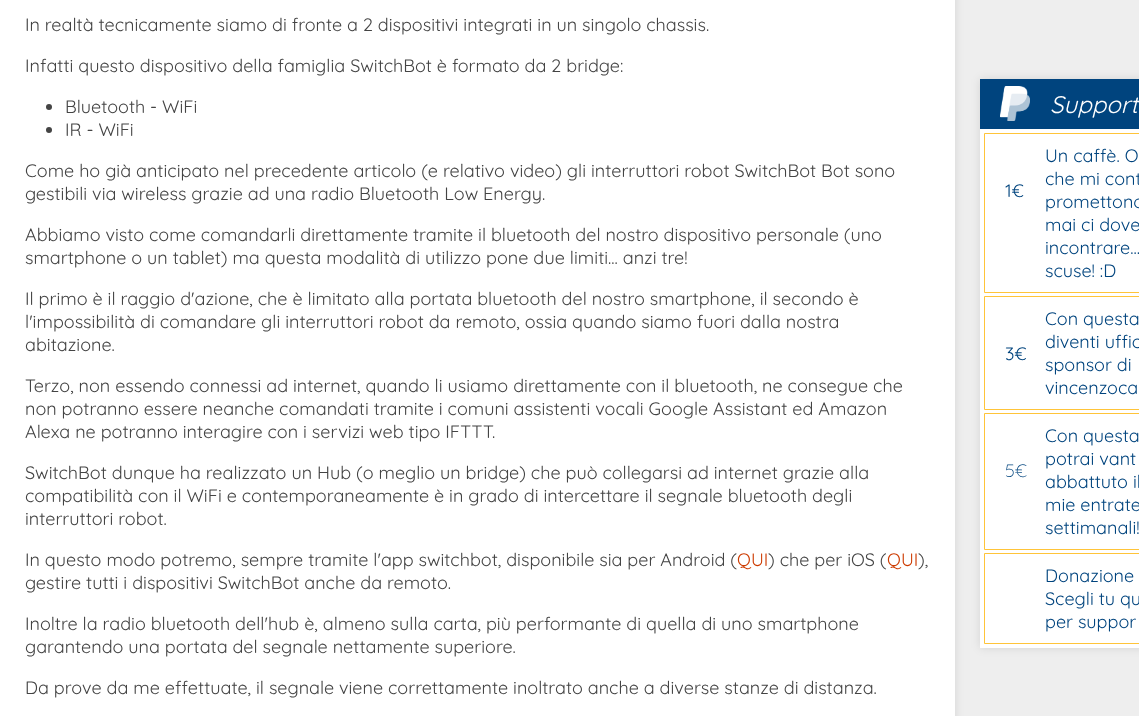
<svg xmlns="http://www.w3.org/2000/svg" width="1139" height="716">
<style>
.a{font:18px Quicksand;fill:#444}
.b{font:18px Quicksand;fill:#cd3b00}
.c{font:italic 24px Quicksand;fill:#fff}
.d{font:18px Quicksand;fill:#00447e}
.e{font:300 18px Quicksand;fill:#00447e}
</style>
<rect width="100%" height="100%" fill="#eee"/>
<path fill="#0000001a" filter="blur(5px)" d="M0 -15h955v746H0z"/>
<path fill="#fff" d="M0 0h955v716H0z"/>
<circle fill="#444" cx="49" cy="107" r="3"/>
<circle fill="#444" cx="49" cy="130" r="3"/>
<path fill="#0000001a" filter="blur(5px)" d="M980 79h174v569H980z"/>
<path fill="#fff" d="M980 129h159v519H980z"/>
<path fill="#00447e" d="M980 79h159v50H980z"/>
<image href="1.png" x="1000" y="86" width="30" height="35"/>
<path fill="none" stroke="#ffc439" d="M984.5 133.5h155v159H984.5z"/>
<path fill="none" stroke="#ffc439" d="M984.5 296.5h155v113H984.5z"/>
<path fill="none" stroke="#ffc439" d="M984.5 413.5h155v136H984.5z"/>
<path fill="none" stroke="#ffc439" d="M984.5 553.5h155v90H984.5z"/>
<text class="a" x="25" y="31">In realtà tecnicamente siamo di fronte a 2 dispositivi integrati in un singolo chassis.</text>
<text class="a" x="25" y="72">Infatti questo dispositivo della famiglia SwitchBot è formato da 2 bridge:</text>
<text class="a" x="65" y="113">Bluetooth - WiFi</text>
<text class="a" x="65" y="136">IR - WiFi</text>
<text class="a" x="25" y="177">Come ho già anticipato nel precedente articolo (e relativo video) gli interruttori robot SwitchBot Bot sono</text>
<text class="a" x="25" y="200">gestibili via wireless grazie ad una radio Bluetooth Low Energy.</text>
<text class="a" x="25" y="241">Abbiamo visto come comandarli direttamente tramite il bluetooth del nostro dispositivo personale (uno</text>
<text class="a" x="25" y="264">smartphone o un tablet) ma questa modalità di utilizzo pone due limiti... anzi tre!</text>
<text class="a" x="25" y="305">Il primo è il raggio d'azione, che è limitato alla portata bluetooth del nostro smartphone, il secondo è</text>
<text class="a" x="25" y="328">l'impossibilità di comandare gli interruttori robot da remoto, ossia quando siamo fuori dalla nostra</text>
<text class="a" x="25" y="351">abitazione.</text>
<text class="a" x="25" y="392">Terzo, non essendo connessi ad internet, quando li usiamo direttamente con il bluetooth, ne consegue che</text>
<text class="a" x="25" y="415">non potranno essere neanche comandati tramite i comuni assistenti vocali Google Assistant ed Amazon</text>
<text class="a" x="25" y="438">Alexa ne potranno interagire con i servizi web tipo IFTTT.</text>
<text class="a" x="25" y="479">SwitchBot dunque ha realizzato un Hub (o meglio un bridge) che può collegarsi ad internet grazie alla</text>
<text class="a" x="25" y="502">compatibilità con il WiFi e contemporaneamente è in grado di intercettare il segnale bluetooth degli</text>
<text class="a" x="25" y="525">interruttori robot.</text>
<text class="a" x="25" y="566">In questo modo potremo, sempre tramite l'app switchbot, disponibile sia per Android (</text>
<text class="b" x="737" y="566">QUI</text>
<text class="a" x="768" y="566">) che per iOS (</text>
<text class="b" x="887" y="566">QUI</text>
<text class="a" x="918" y="566">),</text>
<text class="a" x="25" y="589">gestire tutti i dispositivi SwitchBot anche da remoto.</text>
<text class="a" x="25" y="630">Inoltre la radio bluetooth dell'hub è, almeno sulla carta, più performante di quella di uno smartphone</text>
<text class="a" x="25" y="653">garantendo una portata del segnale nettamente superiore.</text>
<text class="a" x="25" y="694">Da prove da me effettuate, il segnale viene correttamente inoltrato anche a diverse stanze di distanza.</text>
<text class="c" x="1050" y="113">Support</text>
<text class="d" x="1005" y="197">1€</text>
<text class="d" x="1045" y="162">Un caffè. O</text>
<text class="d" x="1045" y="185">che mi cont</text>
<text class="d" x="1045" y="208">promettono</text>
<text class="d" x="1045" y="231">mai ci dove</text>
<text class="d" x="1045" y="254">incontrare...</text>
<text class="d" x="1045" y="277">scuse! :D</text>
<text class="d" x="1005" y="360">3€</text>
<text class="d" x="1045" y="325">Con questa</text>
<text class="d" x="1045" y="348">diventi uffic</text>
<text class="d" x="1045" y="371">sponsor di</text>
<text class="d" x="1045" y="394">vincenzoca</text>
<text class="e" x="1005" y="477">5€</text>
<text class="d" x="1045" y="442">Con questa</text>
<text class="d" x="1045" y="465">potrai vant</text>
<text class="d" x="1045" y="488">abbattuto il</text>
<text class="d" x="1045" y="511">mie entrate</text>
<text class="d" x="1045" y="534">settimanali!</text>
<text class="d" x="1045" y="582">Donazione</text>
<text class="d" x="1045" y="605">Scegli tu qu</text>
<text class="d" x="1045" y="628">per suppor</text>
</svg>
